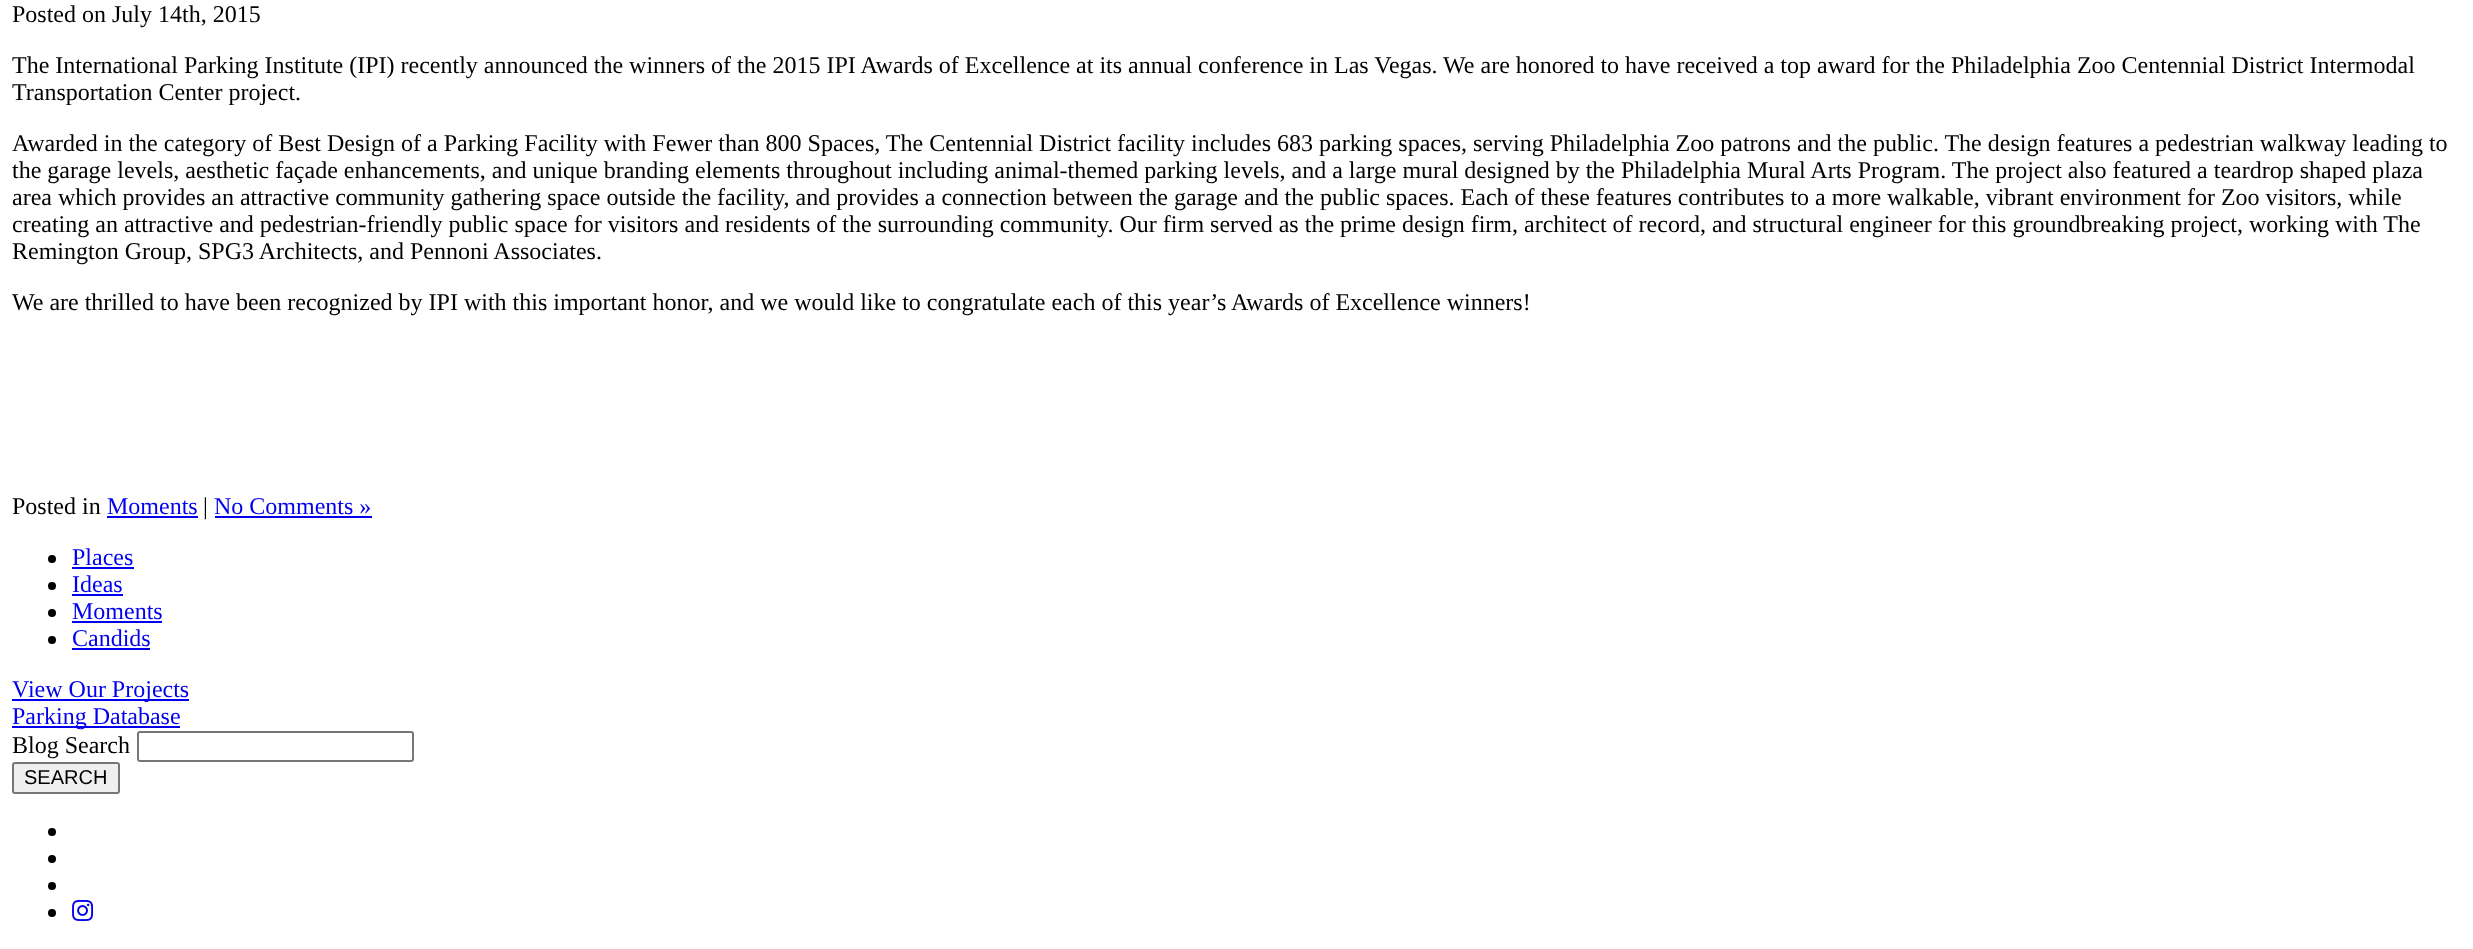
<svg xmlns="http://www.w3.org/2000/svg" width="2473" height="949">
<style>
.a{font:24px Liberation Serif;fill:#000}
.b{font:24px Liberation Serif;fill:#00e}
.c{font:20px Liberation Sans;fill:#000}
</style>
<rect width="100%" height="100%" fill="#fff"/>
<path fill="#00e" d="M107 516h91v2H107z"/>
<path fill="#00e" d="M215 516h157v2H215z"/>
<circle fill="#000" cx="52" cy="559" r="4"/>
<path fill="#00e" d="M72 567h62v2H72z"/>
<circle fill="#000" cx="52" cy="586" r="4"/>
<path fill="#00e" d="M72 594h51v2H72z"/>
<circle fill="#000" cx="52" cy="613" r="4"/>
<path fill="#00e" d="M72 621h90v2H72z"/>
<circle fill="#000" cx="52" cy="640" r="4"/>
<path fill="#00e" d="M72 648h78v2H72z"/>
<path fill="#00e" d="M12 699h177v2H12z"/>
<path fill="#00e" d="M12 726h168v2H12z"/>
<rect fill="none" stroke="#767676" stroke-width="2" x="138" y="732" width="275" height="29" rx="2"/>
<rect fill="#efefef" stroke="#767676" stroke-width="2" x="13" y="763" width="106" height="30" rx="2"/>
<circle fill="#000" cx="52" cy="832" r="4"/>
<circle fill="#000" cx="52" cy="859" r="4"/>
<circle fill="#000" cx="52" cy="886" r="4"/>
<circle fill="#000" cx="52" cy="913" r="4"/>
<image href="1.png" x="72" y="900" width="22" height="21"/>
<text class="a" x="12" y="22">Posted on July 14th, 2015</text>
<text class="a" x="12" y="73">The International Parking Institute (IPI) recently announced the winners of the 2015 IPI Awards of Excellence at its annual conference in Las Vegas. We are honored to have received a top award for the Philadelphia Zoo Centennial District Intermodal</text>
<text class="a" x="12" y="100">Transportation Center project.</text>
<text class="a" x="12" y="151">Awarded in the category of Best Design of a Parking Facility with Fewer than 800 Spaces, The Centennial District facility includes 683 parking spaces, serving Philadelphia Zoo patrons and the public. The design features a pedestrian walkway leading to</text>
<text class="a" x="12" y="178">the garage levels, aesthetic façade enhancements, and unique branding elements throughout including animal-themed parking levels, and a large mural designed by the Philadelphia Mural Arts Program. The project also featured a teardrop shaped plaza</text>
<text class="a" x="12" y="205">area which provides an attractive community gathering space outside the facility, and provides a connection between the garage and the public spaces. Each of these features contributes to a more walkable, vibrant environment for Zoo visitors, while</text>
<text class="a" x="12" y="232">creating an attractive and pedestrian-friendly public space for visitors and residents of the surrounding community. Our firm served as the prime design firm, architect of record, and structural engineer for this groundbreaking project, working with The</text>
<text class="a" x="12" y="259">Remington Group, SPG3 Architects, and Pennoni Associates.</text>
<text class="a" x="12" y="310">We are thrilled to have been recognized by IPI with this important honor, and we would like to congratulate each of this year’s Awards of Excellence winners!</text>
<text class="a" x="12" y="514">Posted in</text>
<text class="b" x="107" y="514">Moments</text>
<text class="a" x="203" y="514">|</text>
<text class="b" x="214" y="514">No Comments »</text>
<text class="b" x="72" y="565">Places</text>
<text class="b" x="72" y="592">Ideas</text>
<text class="b" x="72" y="619">Moments</text>
<text class="b" x="72" y="646">Candids</text>
<text class="b" x="12" y="697">View Our Projects</text>
<text class="b" x="12" y="724">Parking Database</text>
<text class="a" x="12" y="753">Blog Search</text>
<text class="c" x="24" y="784">SEARCH</text>
</svg>
